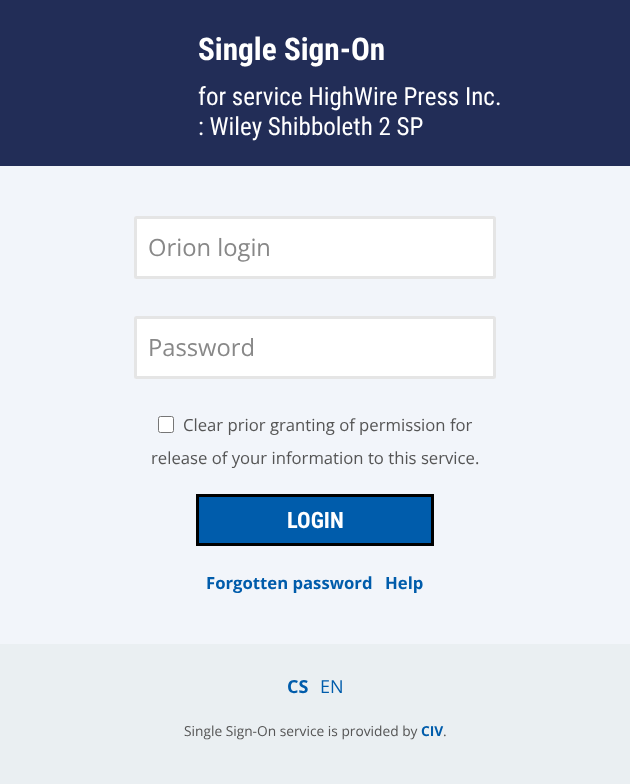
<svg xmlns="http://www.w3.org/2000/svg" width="630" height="784">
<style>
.a{font:bold 31.25px Roboto Condensed;fill:#fff}
.b{font:25px Roboto Condensed;fill:#fff}
.c{font:23.75px Open Sans;fill:#888}
.d{font:16.7px Open Sans;fill:#555}
.e{font:bold 22.5px Roboto Condensed;fill:#fff}
.f{font:bold 16.7px Open Sans;fill:#005cab}
.g{font:bold 18px Open Sans;fill:#005cab}
.h{font:18px Open Sans;fill:#005cab}
.i{font:13.75px Open Sans;fill:#555}
.j{font:bold 13.75px Open Sans;fill:#005cab}
</style>
<rect width="100%" height="100%" fill="#eaeff2"/>
<path fill="#222d57" d="M0 0h630v166H0z"/>
<path fill="#f2f5fa" d="M0 166h630v478H0z"/>
<rect fill="#fff" x="134" y="216" width="362" height="63" rx="2.5"/>
<rect fill="none" stroke="#0000001a" stroke-width="3" x="135.5" y="217.5" width="359" height="60" rx="1"/>
<rect fill="#fff" x="134" y="316" width="362" height="63" rx="2.5"/>
<rect fill="none" stroke="#0000001a" stroke-width="3" x="135.5" y="317.5" width="359" height="60" rx="1"/>
<rect fill="#fff" stroke="#767676" x="158.5" y="416.5" width="15" height="16" rx="2"/>
<path fill="#005cab" stroke="#000" stroke-width="3" d="M197.5 495.5h235v49H197.5z"/>
<text class="a" x="198" y="60">Single Sign-On</text>
<text class="b" x="198" y="105">for service HighWire Press Inc.</text>
<text class="b" x="198" y="135">: Wiley Shibboleth 2 SP</text>
<text class="c" x="148" y="256">Orion login</text>
<text class="c" x="148" y="356">Password</text>
<text class="d" x="183" y="431">Clear prior granting of permission for</text>
<text class="d" x="151" y="464">release of your information to this service.</text>
<text class="e" x="287" y="528">LOGIN</text>
<text class="f" x="206" y="589">Forgotten password</text>
<text class="f" x="385" y="589">Help</text>
<text class="g" x="287" y="693">CS</text>
<text class="h" x="320" y="693">EN</text>
<text class="i" x="184" y="736">Single Sign-On service is provided by</text>
<text class="j" x="421" y="736">CIV</text>
<text class="i" x="443" y="736">.</text>
</svg>
